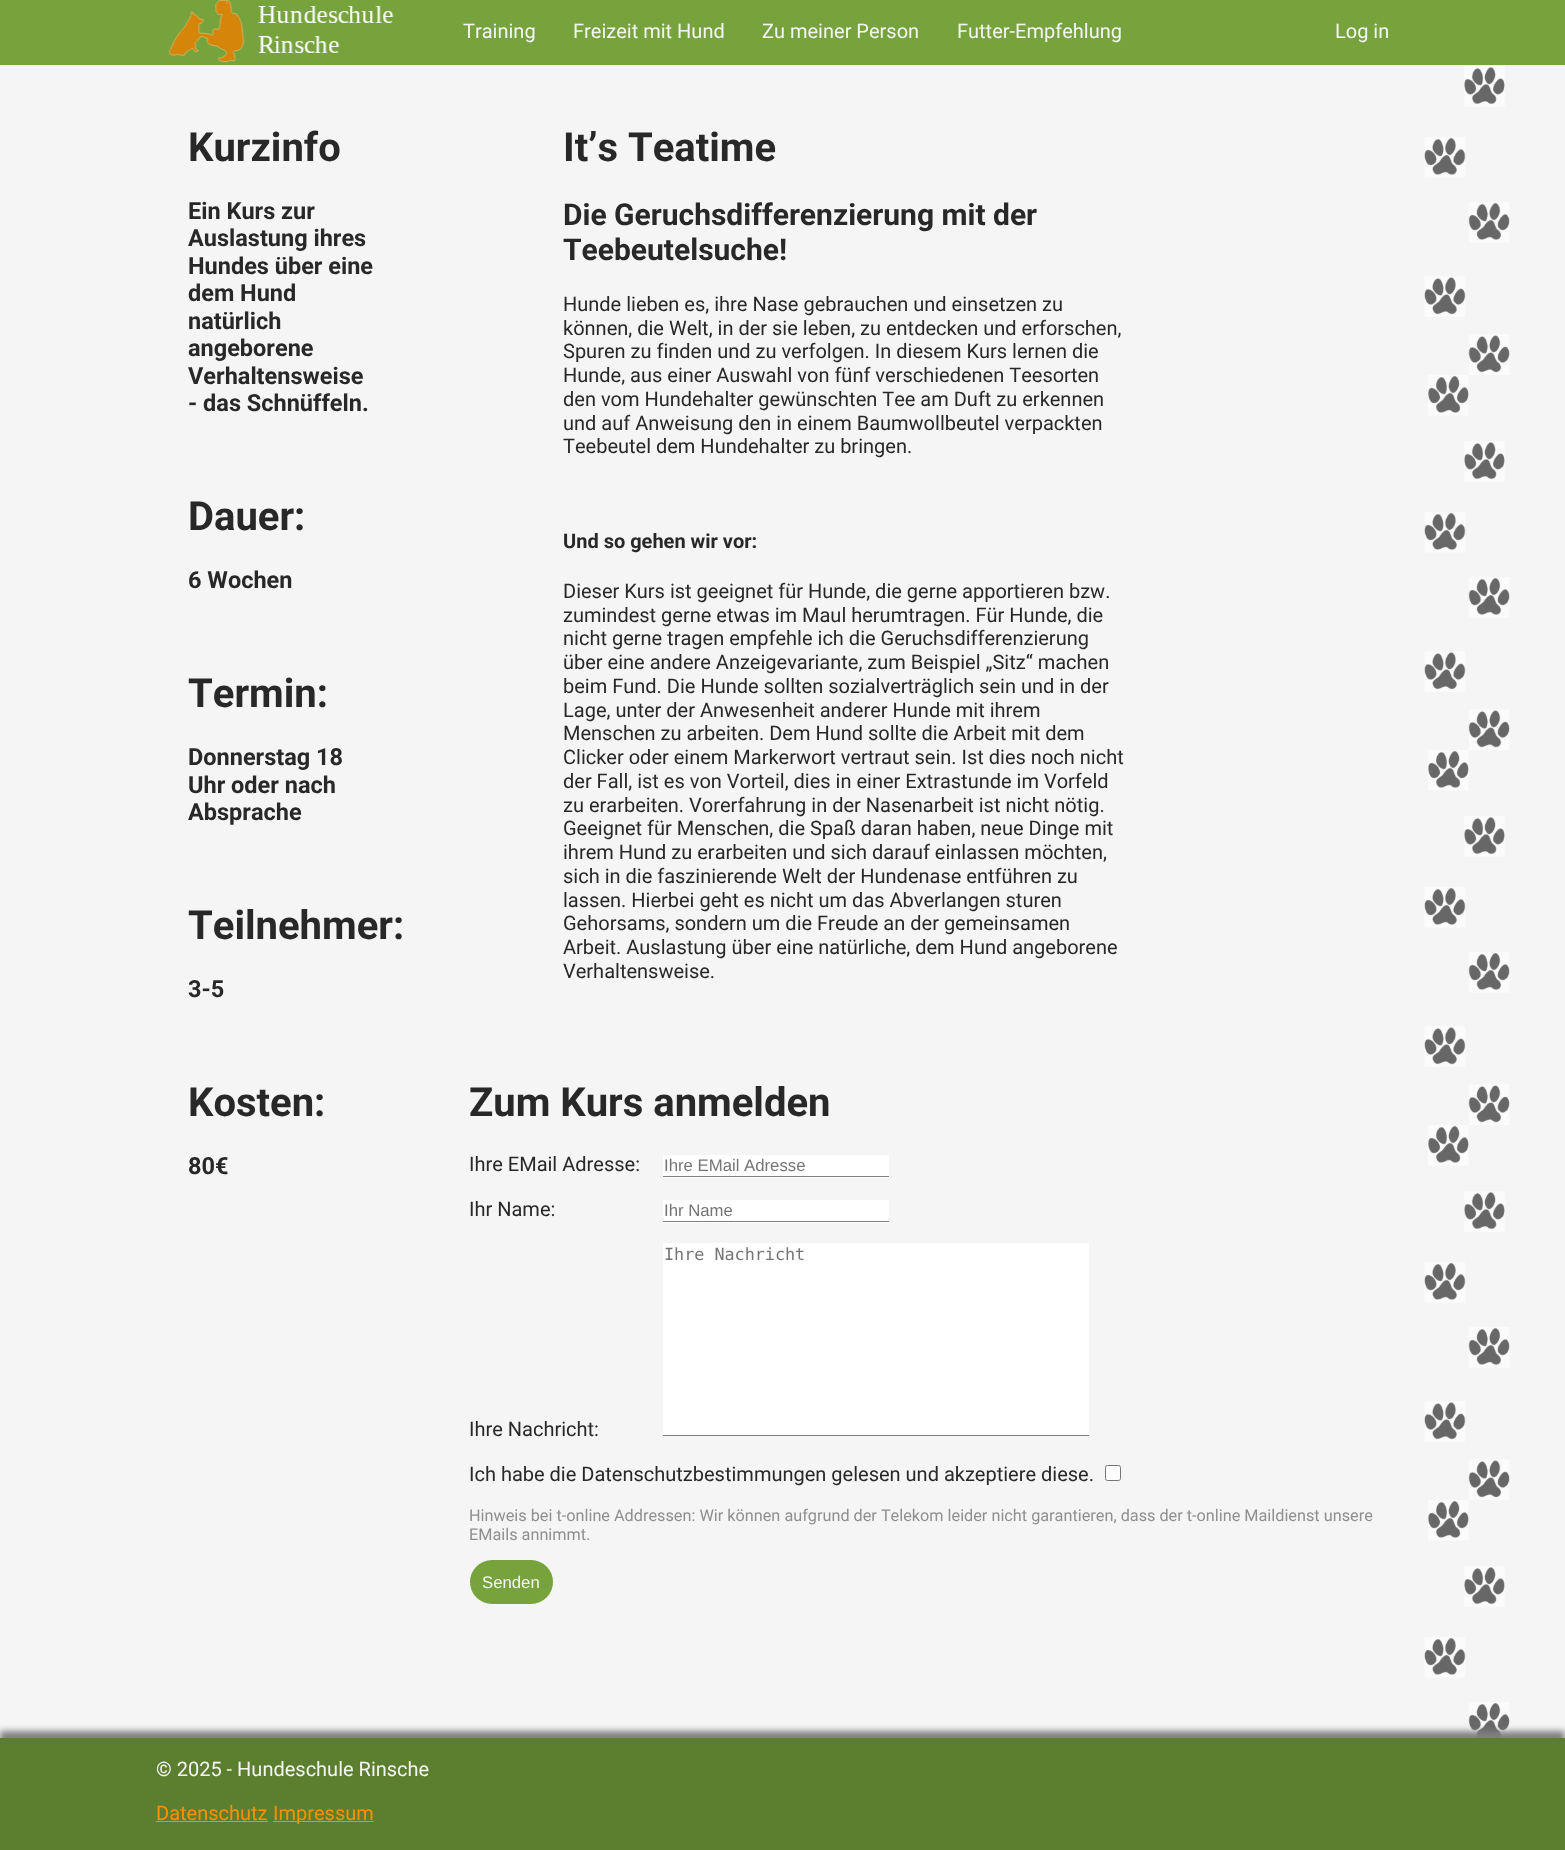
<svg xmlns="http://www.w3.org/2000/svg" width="1565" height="1850">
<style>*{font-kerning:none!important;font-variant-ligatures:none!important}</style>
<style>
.a{font:20px Roboto;fill:#f5f5f5}
.b{font:bold 40px Roboto;fill:#282828}
.c{font:bold 23.5px Roboto;fill:#282828}
.d{font:bold 30px Roboto;fill:#282828}
.e{font:20px Roboto;fill:#282828}
.f{font:bold 20px Roboto;fill:#282828}
.g{font:16.75px Liberation Sans;fill:#757575}
.h{font:16.75px DejaVu Sans Mono;fill:#757575}
.i{font:16.25px Roboto;fill:#8f8f8f}
.j{font:16.75px Liberation Sans;fill:#f5f5f5}
.k{font:20px Roboto;fill:#ff9100}
</style>
<rect width="100%" height="100%" fill="#f5f5f5"/>
<path fill="#77a33d" d="M0 0h1565v65H0z"/>
<image href="1.png" x="168" y="0" width="226" height="63"/>
<path fill="#fff" d="M663 1155h226v23H663z"/>
<path fill="#808080" d="M663 1176h226v1H663z"/>
<path fill="#fff" d="M663 1200h226v23H663z"/>
<path fill="#808080" d="M663 1221h226v1H663z"/>
<path fill="#fff" d="M663 1243h426v192H663z"/>
<path fill="#808080" d="M663 1435h426v1H663z"/>
<rect fill="#fff" stroke="#767676" x="1105.5" y="1465.5" width="15" height="15" rx="2"/>
<rect fill="#77a33d" x="470" y="1560" width="83" height="44" rx="22"/>
<image href="2.png" x="1424" y="66" width="86" height="1672"/>
<path fill="#808080" filter="blur(3px)" d="M0 1731h1565v113H0z"/>
<path fill="#5c7e2f" d="M0 1738h1565v112H0z"/>
<path fill="#ff9100" d="M156 1821h112v1H156z"/>
<path fill="#ff9100" d="M273 1821h101v1H273z"/>
<text class="a" x="463" y="38">Training</text>
<text class="a" x="573" y="38">Freizeit mit Hund</text>
<text class="a" x="762" y="38">Zu meiner Person</text>
<text class="a" x="957" y="38">Futter-Empfehlung</text>
<text class="a" x="1335" y="38">Log in</text>
<text class="b" x="188" y="161">Kurzinfo</text>
<text class="c" x="188" y="219">Ein Kurs zur</text>
<text class="c" x="188" y="246">Auslastung ihres</text>
<text class="c" x="188" y="274">Hundes über eine</text>
<text class="c" x="188" y="301">dem Hund</text>
<text class="c" x="188" y="329">natürlich</text>
<text class="c" x="188" y="356">angeborene</text>
<text class="c" x="188" y="384">Verhaltensweise</text>
<text class="c" x="188" y="411">- das Schnüffeln.</text>
<text class="b" x="188" y="530">Dauer:</text>
<text class="c" x="188" y="588">6 Wochen</text>
<text class="b" x="188" y="707">Termin:</text>
<text class="c" x="188" y="765">Donnerstag 18</text>
<text class="c" x="188" y="793">Uhr oder nach</text>
<text class="c" x="188" y="820">Absprache</text>
<text class="b" x="188" y="939">Teilnehmer:</text>
<text class="c" x="188" y="997">3-5</text>
<text class="b" x="188" y="1116">Kosten:</text>
<text class="c" x="188" y="1174">80€</text>
<text class="b" x="563" y="161">It’s Teatime</text>
<text class="d" x="563" y="225">Die Geruchsdifferenzierung mit der</text>
<text class="d" x="563" y="260">Teebeutelsuche!</text>
<text class="e" x="563" y="311">Hunde lieben es, ihre Nase gebrauchen und einsetzen zu</text>
<text class="e" x="563" y="335">können, die Welt, in der sie leben, zu entdecken und erforschen,</text>
<text class="e" x="563" y="358">Spuren zu finden und zu verfolgen. In diesem Kurs lernen die</text>
<text class="e" x="563" y="382">Hunde, aus einer Auswahl von fünf verschiedenen Teesorten</text>
<text class="e" x="563" y="406">den vom Hundehalter gewünschten Tee am Duft zu erkennen</text>
<text class="e" x="563" y="430">und auf Anweisung den in einem Baumwollbeutel verpackten</text>
<text class="e" x="563" y="453">Teebeutel dem Hundehalter zu bringen.</text>
<text class="f" x="563" y="548">Und so gehen wir vor:</text>
<text class="e" x="563" y="598">Dieser Kurs ist geeignet für Hunde, die gerne apportieren bzw.</text>
<text class="e" x="563" y="622">zumindest gerne etwas im Maul herumtragen. Für Hunde, die</text>
<text class="e" x="563" y="645">nicht gerne tragen empfehle ich die Geruchsdifferenzierung</text>
<text class="e" x="563" y="669">über eine andere Anzeigevariante, zum Beispiel „Sitz“ machen</text>
<text class="e" x="563" y="693">beim Fund. Die Hunde sollten sozialverträglich sein und in der</text>
<text class="e" x="563" y="717">Lage, unter der Anwesenheit anderer Hunde mit ihrem</text>
<text class="e" x="563" y="740">Menschen zu arbeiten. Dem Hund sollte die Arbeit mit dem</text>
<text class="e" x="563" y="764">Clicker oder einem Markerwort vertraut sein. Ist dies noch nicht</text>
<text class="e" x="563" y="788">der Fall, ist es von Vorteil, dies in einer Extrastunde im Vorfeld</text>
<text class="e" x="563" y="812">zu erarbeiten. Vorerfahrung in der Nasenarbeit ist nicht nötig.</text>
<text class="e" x="563" y="835">Geeignet für Menschen, die Spaß daran haben, neue Dinge mit</text>
<text class="e" x="563" y="859">ihrem Hund zu erarbeiten und sich darauf einlassen möchten,</text>
<text class="e" x="563" y="883">sich in die faszinierende Welt der Hundenase entführen zu</text>
<text class="e" x="563" y="907">lassen. Hierbei geht es nicht um das Abverlangen sturen</text>
<text class="e" x="563" y="930">Gehorsams, sondern um die Freude an der gemeinsamen</text>
<text class="e" x="563" y="954">Arbeit. Auslastung über eine natürliche, dem Hund angeborene</text>
<text class="e" x="563" y="978">Verhaltensweise.</text>
<text class="b" x="469" y="1116">Zum Kurs anmelden</text>
<text class="e" x="469" y="1171">Ihre EMail Adresse:</text>
<text class="g" x="664" y="1171">Ihre EMail Adresse</text>
<text class="e" x="469" y="1216">Ihr Name:</text>
<text class="g" x="664" y="1216">Ihr Name</text>
<text class="h" x="664" y="1260">Ihre Nachricht</text>
<text class="e" x="469" y="1436">Ihre Nachricht:</text>
<text class="e" x="469" y="1481">Ich habe die Datenschutzbestimmungen gelesen und akzeptiere diese.</text>
<text class="i" x="469" y="1521">Hinweis bei t-online Addressen: Wir können aufgrund der Telekom leider nicht garantieren, dass der t-online Maildienst unsere</text>
<text class="i" x="469" y="1540">EMails annimmt.</text>
<text class="j" x="482" y="1588">Senden</text>
<text class="a" x="156" y="1776">© 2025 - Hundeschule Rinsche</text>
<text class="k" x="156" y="1820">Datenschutz</text>
<text class="k" x="273" y="1820">Impressum</text>
</svg>
